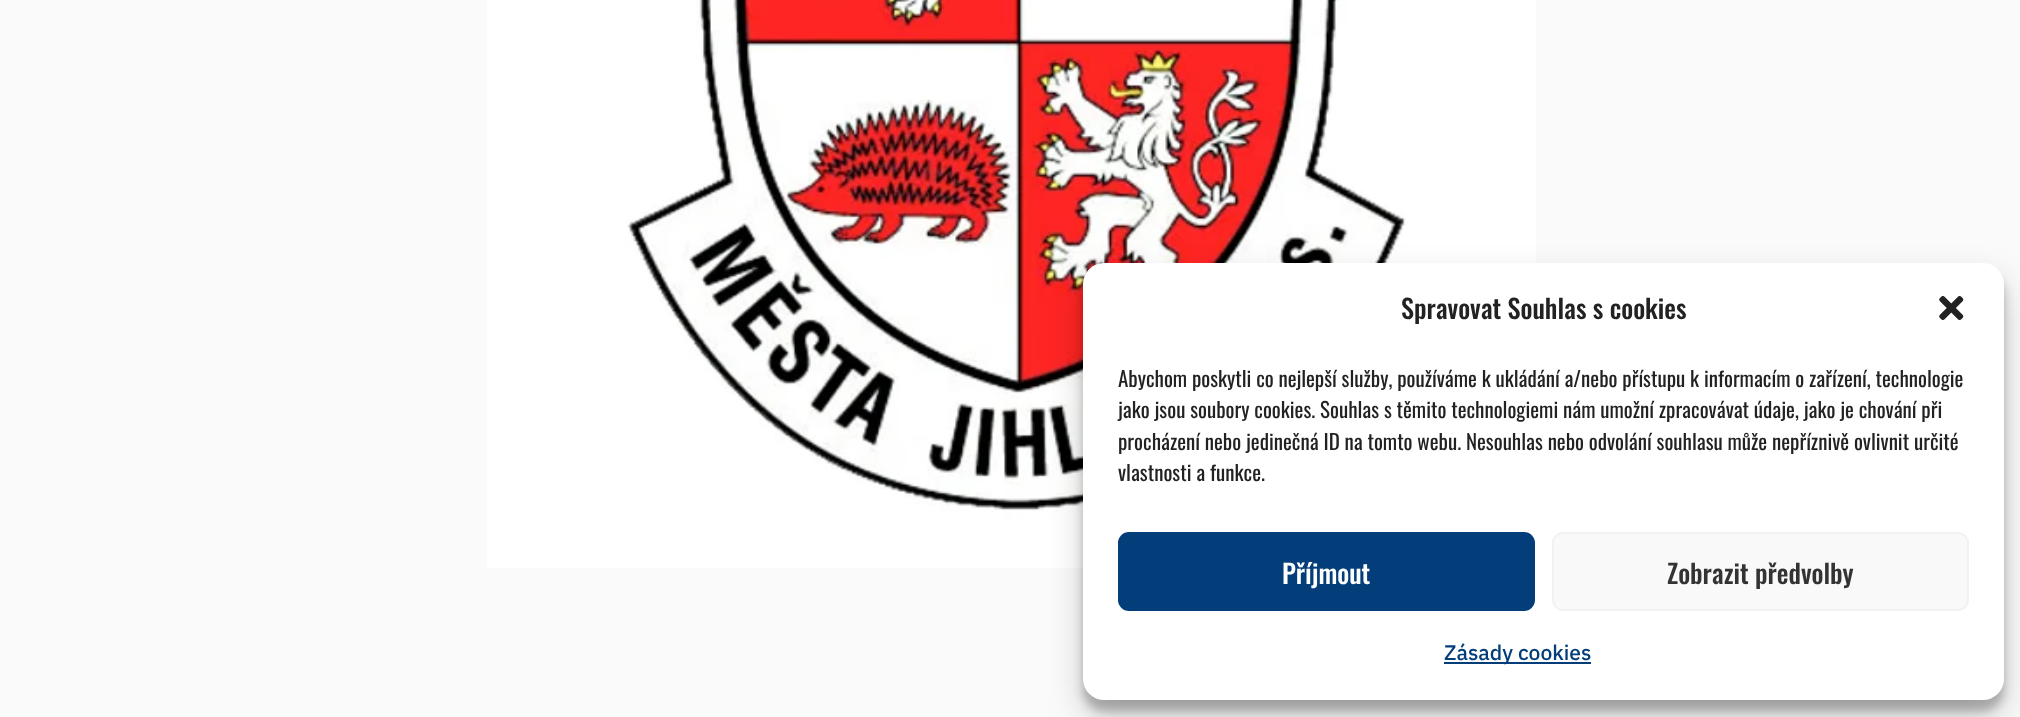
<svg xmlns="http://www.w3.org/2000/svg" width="2020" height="717">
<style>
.a{font:500 26.25px Oswald;fill:#222}
.b{font:21px Oswald;fill:#222}
.c{font:500 26.25px Oswald;fill:#fff}
.d{font:500 26.25px Oswald;fill:#333}
.e{font:500 21px IBM Plex Sans;fill:#033e7a}
</style>
<rect width="100%" height="100%" fill="#fafafa"/>
<image href="1.png" x="487" y="0" width="1049" height="568"/>
<rect fill="#0000003b" filter="blur(5px)" x="1083" y="273" width="921" height="438" rx="21"/>
<rect fill="#00000030" filter="blur(17.5px)" x="1083" y="280" width="921" height="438" rx="21"/>
<rect fill="#fff" x="1083" y="263" width="921" height="437" rx="21"/>
<image href="2.png" x="1939" y="296" width="25" height="24"/>
<rect fill="#033e7a" stroke="#033e7a" stroke-width="2" x="1119" y="533" width="415" height="77" rx="10"/>
<rect fill="#f9f9f9" stroke="#f2f2f2" stroke-width="2" x="1553" y="533" width="415" height="77" rx="10"/>
<path fill="#033e7a" d="M1444 662h147v2H1444z"/>
<text class="a" x="1401" y="319">Spravovat Souhlas s cookies</text>
<text class="b" x="1118" y="387">Abychom poskytli co nejlepší služby, používáme k ukládání a/nebo přístupu k informacím o zařízení, technologie</text>
<text class="b" x="1118" y="418">jako jsou soubory cookies. Souhlas s těmito technologiemi nám umožní zpracovávat údaje, jako je chování při</text>
<text class="b" x="1118" y="450">procházení nebo jedinečná ID na tomto webu. Nesouhlas nebo odvolání souhlasu může nepříznivě ovlivnit určité</text>
<text class="b" x="1118" y="481">vlastnosti a funkce.</text>
<text class="c" x="1282" y="584">Příjmout</text>
<text class="d" x="1667" y="584">Zobrazit předvolby</text>
<text class="e" x="1444" y="660">Zásady cookies</text>
</svg>
